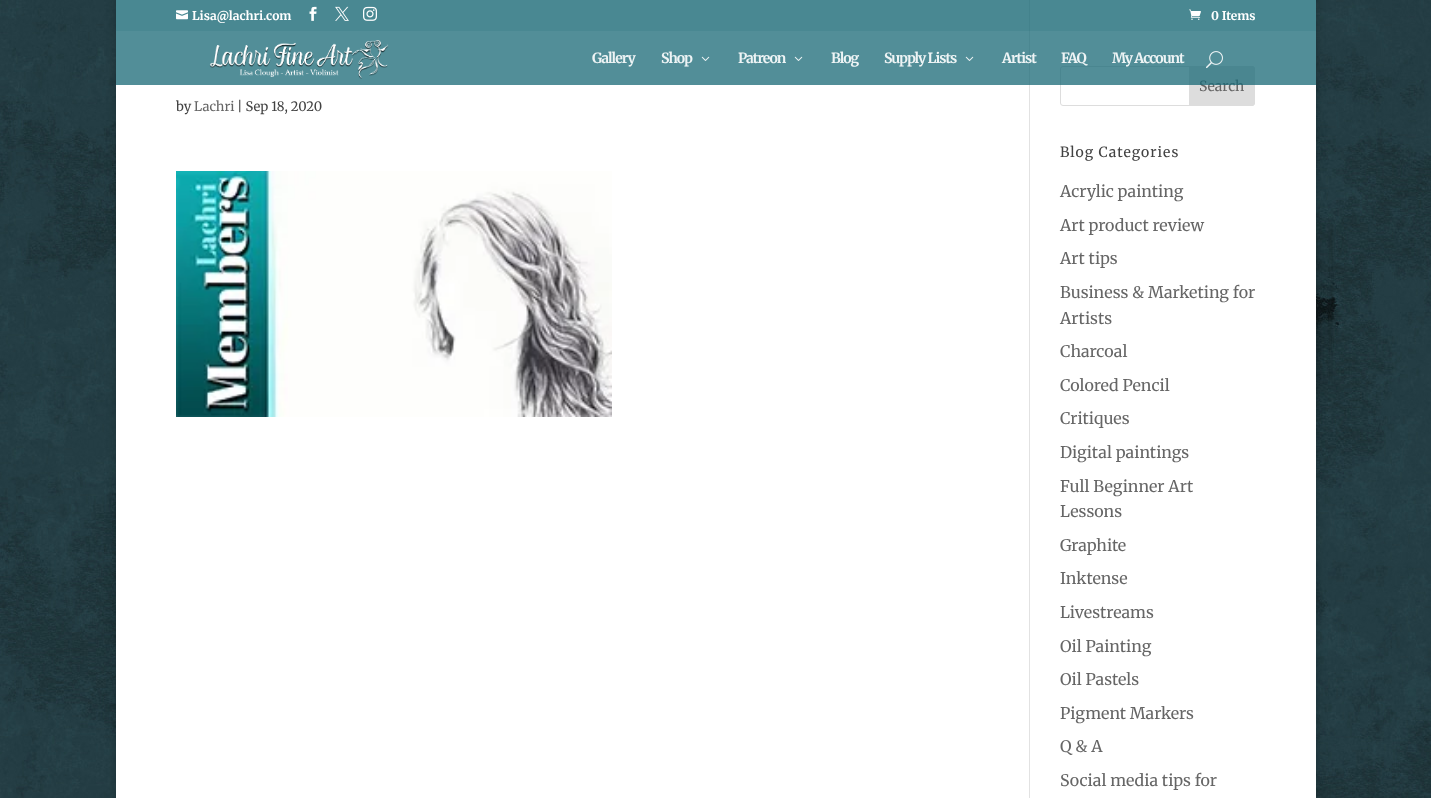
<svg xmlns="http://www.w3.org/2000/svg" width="1431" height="798">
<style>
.a{font:bold 12px Merriweather;fill:#fff}
.b{font:13px Merriweather;fill:#424242}
.c{font:13px Merriweather;fill:#666}
.d{font:14px Merriweather;fill:#666}
.e{font:bold 14px Merriweather;letter-spacing:-1px;fill:#eef4f5}
.f{font:14px Merriweather;letter-spacing:1px;fill:#424242}
.g{font:16px Merriweather;fill:#666}
</style>
<rect width="100%" height="100%" fill="#fff"/>
<image href="1.png" x="0" y="0" width="1431" height="798"/>
<path fill="#00000033" filter="blur(5px)" d="M116 -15h1200v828H116z"/>
<path fill="#fff" d="M116 0h1200v798H116z"/>
<path fill="#e2e2e2" d="M1029 0h1v798H1029z"/>
<path fill="#186875c9" d="M116 0h1200v31H116z"/>
<image href="2.png" x="176" y="10" width="12" height="10"/>
<image href="3.png" x="309" y="6" width="8" height="15"/>
<image href="4.png" x="335" y="6" width="14" height="15"/>
<image href="5.png" x="363" y="6" width="14" height="15"/>
<image href="6.png" x="1189" y="9" width="12" height="11"/>
<image href="10.png" x="176" y="171" width="436" height="246"/>
<rect fill="none" stroke="#ddd" x="1060.5" y="66.5" width="194" height="39" rx="2.5"/>
<path fill="#ddd" stroke="#ddd" d="M1189.5 66.5h62.5c1.5 0 2.5 1 2.5 2.5v34c0 1.5-1 2.5-2.5 2.5h-62.5z"/>
<text class="a" x="192" y="20">Lisa@lachri.com</text>
<text class="a" x="1211" y="20">0 Items</text>
<text class="b" x="176" y="111">by</text>
<text class="c" x="194" y="111">Lachri</text>
<text class="b" x="237" y="111">| Sep 18, 2020</text>
<text class="d" x="1199" y="91">Search</text>
<path fill="#186875bf" d="M116 31h1200v54H116z"/>
<image href="9.png" x="1206" y="51" width="17" height="18"/>
<text class="e" x="1112" y="63">My Account</text>
<text class="e" x="1061" y="63">FAQ</text>
<text class="e" x="1002" y="63">Artist</text>
<image href="8.png" x="965" y="56" width="9" height="5"/>
<text class="e" x="884" y="63">Supply Lists</text>
<text class="e" x="831" y="63">Blog</text>
<image href="8.png" x="794" y="56" width="9" height="5"/>
<text class="e" x="738" y="63">Patreon</text>
<image href="8.png" x="701" y="56" width="9" height="5"/>
<text class="e" x="661" y="63">Shop</text>
<text class="e" x="592" y="63">Gallery</text>
<image href="7.png" x="209" y="40" width="180" height="39"/>
<text class="f" x="1060" y="157">Blog Categories</text>
<text class="g" x="1060" y="197">Acrylic painting</text>
<text class="g" x="1060" y="231">Art product review</text>
<text class="g" x="1060" y="264">Art tips</text>
<text class="g" x="1060" y="298">Business &amp; Marketing for</text>
<text class="g" x="1060" y="324">Artists</text>
<text class="g" x="1060" y="357">Charcoal</text>
<text class="g" x="1060" y="391">Colored Pencil</text>
<text class="g" x="1060" y="424">Critiques</text>
<text class="g" x="1060" y="458">Digital paintings</text>
<text class="g" x="1060" y="492">Full Beginner Art</text>
<text class="g" x="1060" y="517">Lessons</text>
<text class="g" x="1060" y="551">Graphite</text>
<text class="g" x="1060" y="584">Inktense</text>
<text class="g" x="1060" y="618">Livestreams</text>
<text class="g" x="1060" y="652">Oil Painting</text>
<text class="g" x="1060" y="685">Oil Pastels</text>
<text class="g" x="1060" y="719">Pigment Markers</text>
<text class="g" x="1060" y="752">Q &amp; A</text>
<text class="g" x="1060" y="786">Social media tips for</text>
</svg>
